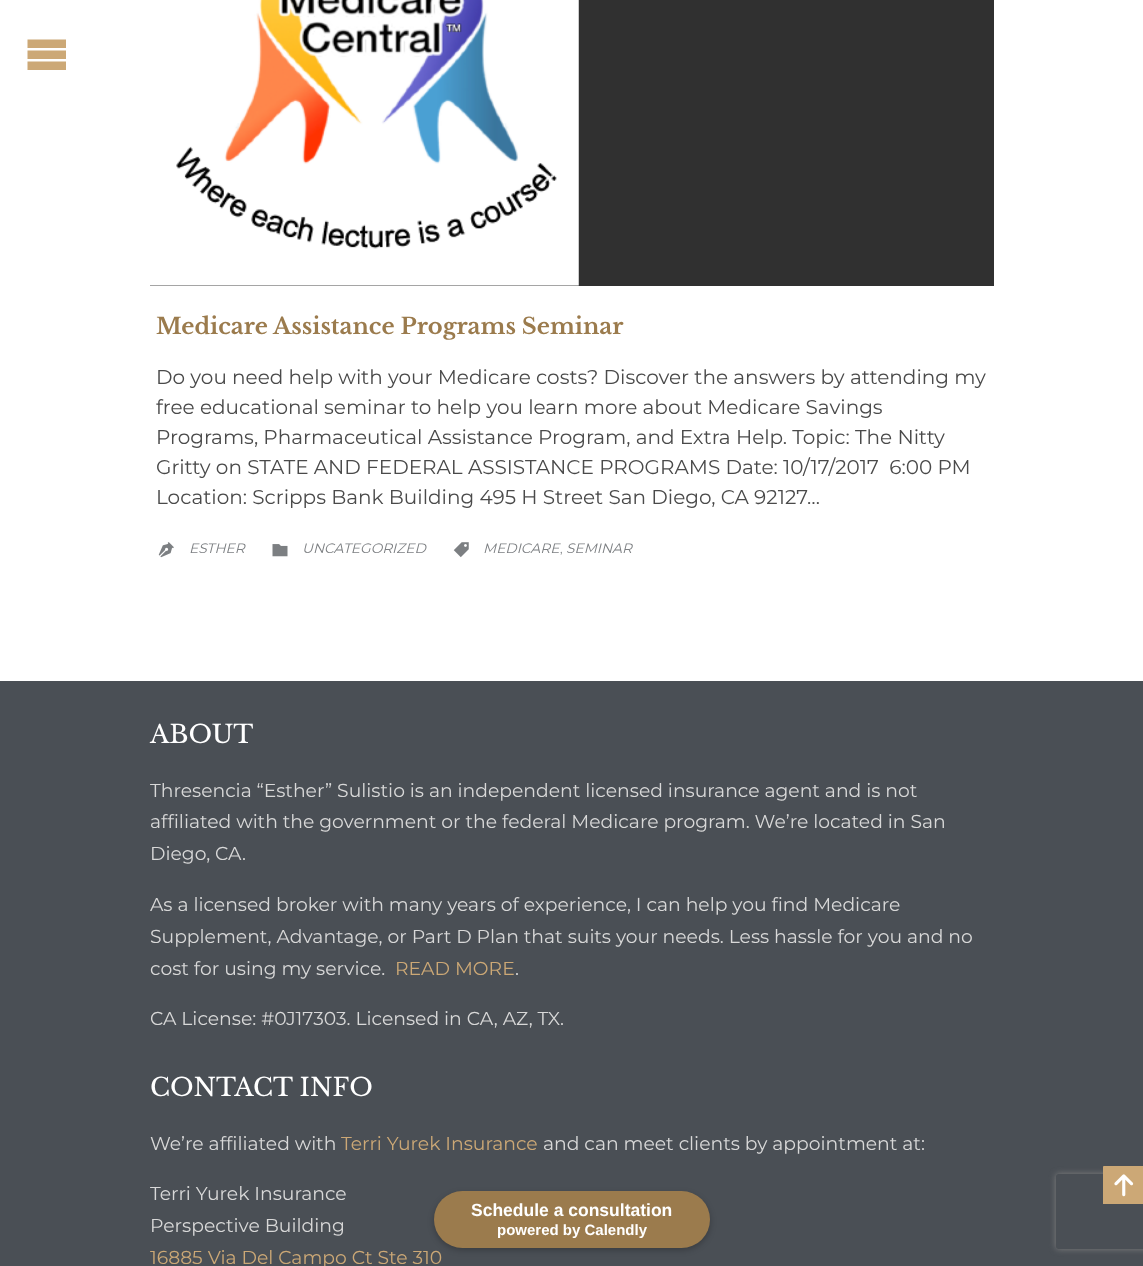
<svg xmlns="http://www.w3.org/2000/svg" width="1143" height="1266">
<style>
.a{font:bold 22.5px Libre Baskerville;fill:#9b7b4d}
.b{font:20px Montserrat;fill:#4a4a4a}
.c{font:italic 13.75px Montserrat;fill:#7c7f82}
.d{font:12px Montserrat;fill:#7c7f82}
.e{font:25px Libre Baskerville;fill:#fff}
.f{font:18.75px Montserrat;fill:#d8d8d8}
.g{font:18.75px Montserrat;fill:#cca876}
.h{font:bold 17.5px Liberation Sans;fill:#fff}
.i{font:bold 15px Liberation Sans;fill:#fff}
</style>
<defs>
<clipPath id="clip1"><path d="M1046 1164h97v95h-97zm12.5 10h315c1.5 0 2.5 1 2.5 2.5v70c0 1.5-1 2.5-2.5 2.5h-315c-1.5 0-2.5-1-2.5-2.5v-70c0-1.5 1-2.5 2.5-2.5z" clip-rule="evenodd"/></clipPath>
</defs>
<rect width="100%" height="100%" fill="#4a4f55"/>
<path fill="#fff" d="M0 0h1143v681H0z"/>
<path fill="#cca876" d="M27.5 39.5h38.5v8.5h-38.5zm0 11h38.5v8.5h-38.5zm0 11h38.5v8.5h-38.5z"/>
<path fill="#303030" d="M150 0h844v286H150z"/>
<image href="1.png" x="150" y="0" width="429" height="286"/>
<image href="2.png" x="158" y="542" width="16" height="16"/>
<image href="3.png" x="272" y="544" width="16" height="13"/>
<image href="4.png" x="453" y="542" width="16" height="16"/>
<g clip-path="url(#clip1)">
<rect fill="#808080" filter="blur(3px)" x="1056" y="1174" width="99" height="75" rx="2.5"/>
</g>
<path fill="#cca876" d="M1104 1166h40v38h-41v-37c0-.5 .5-1 1-1z"/>
<image href="5.png" x="1114" y="1174" width="20" height="23"/>
<rect fill="#00000040" filter="blur(3px)" x="434" y="1194" width="276" height="56" rx="28"/>
<rect fill="#9b7b4d" x="434" y="1191" width="276" height="57" rx="28.5"/>
<text class="a" x="156" y="334">Medicare Assistance Programs Seminar</text>
<text class="b" x="156" y="384">Do you need help with your Medicare costs? Discover the answers by attending my</text>
<text class="b" x="156" y="414">free educational seminar to help you learn more about Medicare Savings</text>
<text class="b" x="156" y="444">Programs, Pharmaceutical Assistance Program, and Extra Help. Topic: The Nitty</text>
<text class="b" xml:space="preserve" x="156" y="474">Gritty on STATE AND FEDERAL ASSISTANCE PROGRAMS Date: 10/17/2017  6:00 PM</text>
<text class="b" x="156" y="504">Location: Scripps Bank Building 495 H Street San Diego, CA 92127…</text>
<text class="c" x="189" y="553">ESTHER</text>
<text class="c" x="302" y="553">UNCATEGORIZED</text>
<text class="c" x="483" y="553">MEDICARE</text>
<text class="c" x="566" y="553">SEMINAR</text>
<text class="d" x="560" y="553">,</text>
<text class="e" x="150" y="743">ABOUT</text>
<text class="f" x="150" y="797">Thresencia “Esther” Sulistio is an independent licensed insurance agent and is not</text>
<text class="f" x="150" y="828">affiliated with the government or the federal Medicare program. We’re located in San</text>
<text class="f" x="150" y="860">Diego, CA.</text>
<text class="f" x="150" y="911">As a licensed broker with many years of experience, I can help you find Medicare</text>
<text class="f" x="150" y="943">Supplement, Advantage, or Part D Plan that suits your needs. Less hassle for you and no</text>
<text class="f" x="150" y="975">cost for using my service.</text>
<text class="g" x="395" y="975">READ MORE</text>
<text class="f" x="515" y="975">.</text>
<text class="f" x="150" y="1025">CA License: #0J17303. Licensed in CA, AZ, TX.</text>
<text class="e" x="150" y="1096">CONTACT INFO</text>
<text class="f" x="150" y="1150">We’re affiliated with</text>
<text class="g" x="341" y="1150">Terri Yurek Insurance</text>
<text class="f" x="543" y="1150">and can meet clients by appointment at:</text>
<text class="f" x="150" y="1200">Terri Yurek Insurance</text>
<text class="f" x="150" y="1232">Perspective Building</text>
<text class="g" x="150" y="1264">16885 Via Del Campo Ct Ste 310</text>
<text class="h" x="471" y="1216">Schedule a consultation</text>
<text class="i" x="497" y="1235">powered by Calendly</text>
</svg>
